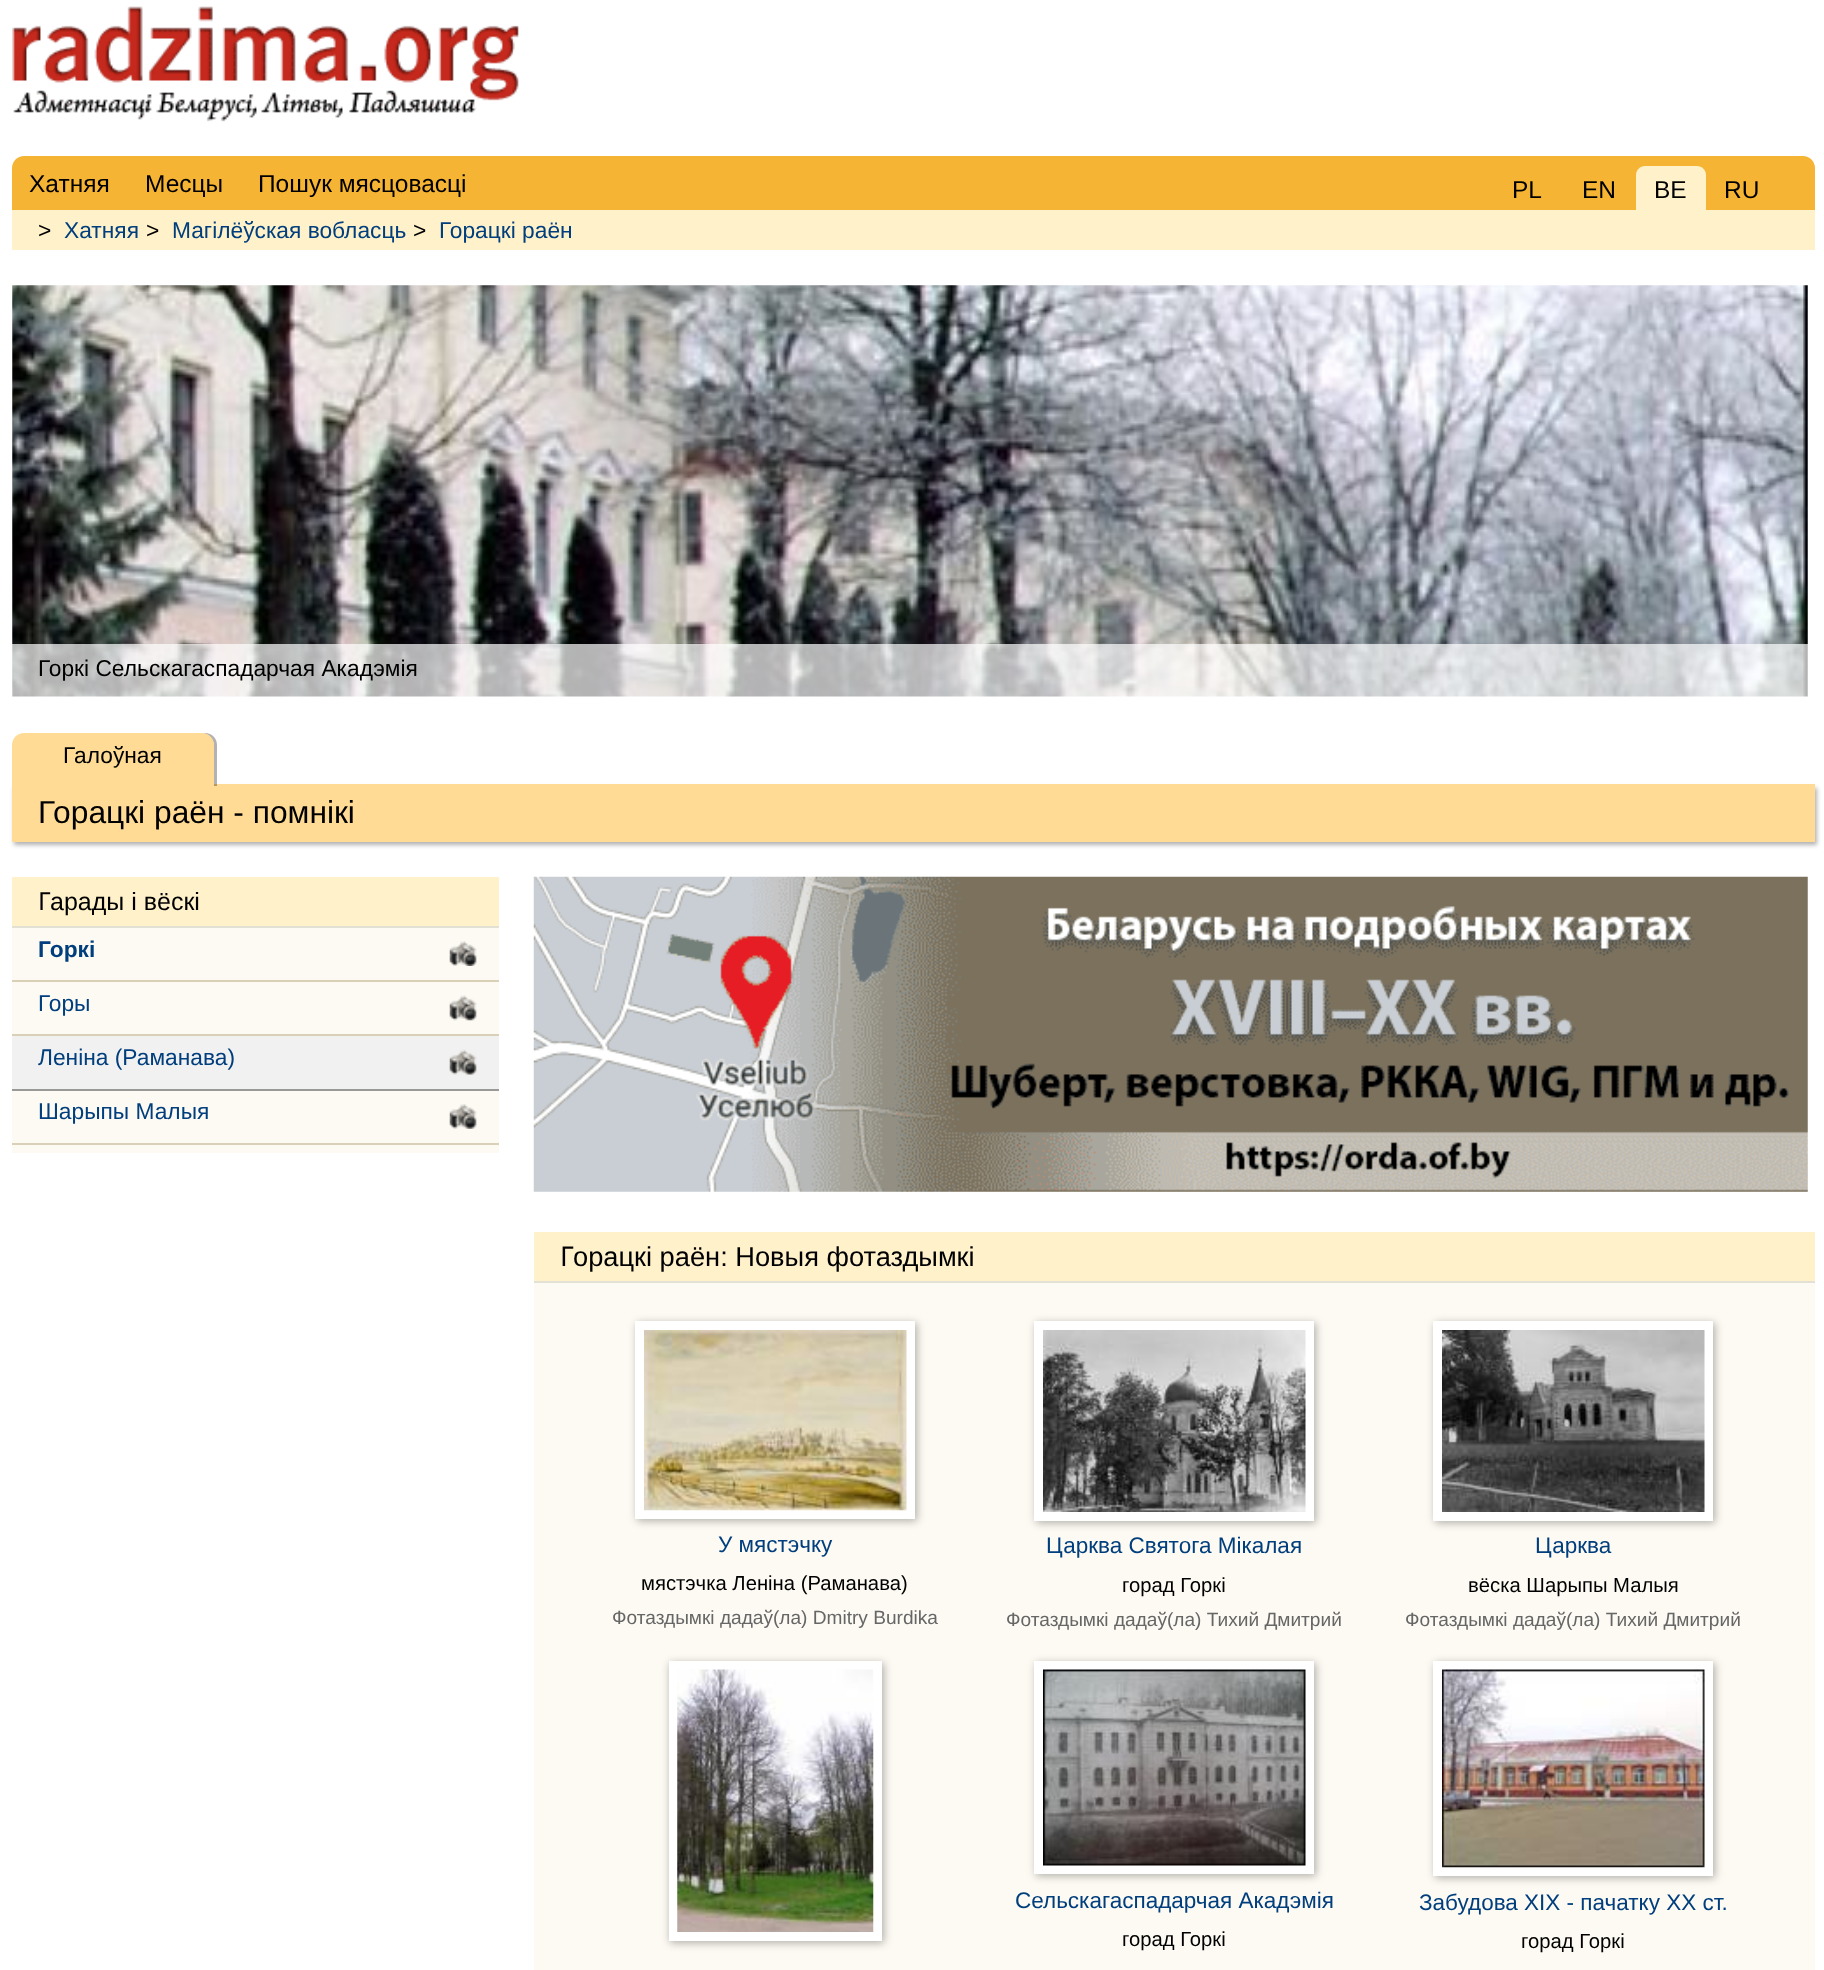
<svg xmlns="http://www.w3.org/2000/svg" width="1824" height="1970">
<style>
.a{font:24.5px Liberation Sans;fill:#000}
.b{font:22.75px Liberation Sans;fill:#000}
.c{font:22.75px Liberation Sans;fill:#003e7d}
.d{font:31.75px Liberation Sans;fill:#000}
.e{font:25px Noto Sans;fill:#000}
.f{font:25px Liberation Sans;fill:#000}
.g{font:bold 22.75px Liberation Sans;fill:#003e7d}
.h{font:27.25px Noto Sans;fill:#000}
.i{font:27.25px Liberation Sans;fill:#000}
.j{font:22.5px Liberation Sans;fill:#003e7d}
.k{font:20.25px Liberation Sans;fill:#000}
.l{font:19.1px Liberation Sans;fill:#666}
</style>
<rect width="100%" height="100%" fill="#fff"/>
<image href="1.png" x="12" y="6" width="507" height="116"/>
<path fill="#f5b433" d="M24 156h1779c6.5 0 12 5.5 12 12v42h-1803v-42c0-6.5 5.5-12 12-12z"/>
<path fill="#fff1ca" d="M1645 166h52c5 0 9 4 9 9v35h-70v-35c0-5 4-9 9-9z"/>
<path fill="#fff1ca" d="M12 210h1803v40H12z"/>
<image href="2.png" x="12" y="285" width="1796" height="412"/>
<path fill="#ffffffb3" d="M12 644h1796v53H12z"/>
<path fill="#0000004d" filter="blur(2px)" d="M14 788h1803v57H14z"/>
<path fill="#ffdb95" d="M12 784h1803v58H12z"/>
<path fill="#0000004d" d="M28 733h-2h175c7 0 13 6 13 13v40h-198h201v-41c0-7-5-12-12-12z"/>
<path fill="#ffdb95" d="M24 733h178c6.5 0 12 5.5 12 12v41h-202v-41c0-6.5 5.5-12 12-12z"/>
<path fill="#fff1ca" d="M12 877h487v49H12z"/>
<path fill="#e2e1d4" d="M12 926h487v2H12z"/>
<path fill="#fcfaf2" d="M12 928h487v225H12z"/>
<path fill="#dacfb7" d="M12 980h487v2H12z"/>
<image href="3.png" x="449" y="941" width="28" height="25"/>
<path fill="#dacfb7" d="M12 1034h487v2H12z"/>
<image href="4.png" x="449" y="995" width="28" height="26"/>
<path fill="#f1f1f1" d="M12 1036h487v53H12z"/>
<path fill="#999" d="M12 1089h487v2H12z"/>
<image href="5.png" x="449" y="1049" width="28" height="26"/>
<path fill="#dacfb7" d="M12 1143h487v2H12z"/>
<image href="6.png" x="449" y="1104" width="28" height="25"/>
<image href="7.png" x="533" y="876" width="1275" height="316"/>
<path fill="#fff1ca" d="M534 1232h1281v49H534z"/>
<path fill="#e2e1d4" d="M534 1281h1281v2H534z"/>
<path fill="#fcfaf2" d="M534 1283h1281v687H534z"/>
<path fill="#0000004d" filter="blur(4.5px)" d="M637 1323h280v198H637z"/>
<path fill="none" stroke="#fff" stroke-width="9" d="M639.5 1325.5h271v189H639.5z"/>
<image href="8.png" x="644" y="1330" width="263" height="181"/>
<path fill="#0000004d" filter="blur(4.5px)" d="M1036 1323h280v200H1036z"/>
<path fill="none" stroke="#fff" stroke-width="9" d="M1038.5 1325.5h271v191H1038.5z"/>
<image href="9.png" x="1043" y="1330" width="263" height="182"/>
<path fill="#0000004d" filter="blur(4.5px)" d="M1435 1323h280v200H1435z"/>
<path fill="none" stroke="#fff" stroke-width="9" d="M1437.5 1325.5h271v191H1437.5z"/>
<image href="10.png" x="1442" y="1330" width="263" height="182"/>
<path fill="#0000004d" filter="blur(4.5px)" d="M670 1663h214v280H670z"/>
<path fill="none" stroke="#fff" stroke-width="9" d="M673.5 1665.5h204v271H673.5z"/>
<image href="11.png" x="677" y="1669" width="197" height="263"/>
<path fill="#0000004d" filter="blur(4.5px)" d="M1036 1663h280v213H1036z"/>
<path fill="none" stroke="#fff" stroke-width="9" d="M1038.5 1665.5h271v204H1038.5z"/>
<image href="12.png" x="1043" y="1669" width="263" height="197"/>
<path fill="#0000004d" filter="blur(4.5px)" d="M1435 1663h280v215H1435z"/>
<path fill="none" stroke="#fff" stroke-width="9" d="M1437.5 1665.5h271v206H1437.5z"/>
<image href="13.png" x="1442" y="1669" width="263" height="199"/>
<text class="a" x="29" y="192">Хатняя</text>
<text class="a" x="145" y="192">Месцы</text>
<text class="a" x="258" y="192">Пошук мясцовасці</text>
<text class="a" x="1512" y="198">PL</text>
<text class="a" x="1582" y="198">EN</text>
<text class="a" x="1654" y="198">BE</text>
<text class="a" x="1724" y="198">RU</text>
<text class="b" x="38" y="238">&gt;</text>
<text class="c" x="64" y="238">Хатняя</text>
<text class="b" x="146" y="238">&gt;</text>
<text class="c" x="172" y="238">Магілёўская вобласць</text>
<text class="b" x="413" y="238">&gt;</text>
<text class="c" x="439" y="238">Горацкі раён</text>
<text class="b" x="38" y="676">Горкі Сельскагаспадарчая Акадэмія</text>
<text class="b" x="63" y="763">Галоўная</text>
<text class="d" x="38" y="823">Горацкі раён - помнікі</text>
<text class="e" x="38" y="910">Г</text>
<text class="f" x="50" y="910">арады і вёскі</text>
<text class="g" x="38" y="957">Горкі</text>
<text class="c" x="38" y="1011">Горы</text>
<text class="c" x="38" y="1065">Леніна (Раманава)</text>
<text class="c" x="38" y="1119">Шарыпы Малыя</text>
<text class="h" x="560" y="1266">Г</text>
<text class="i" x="573" y="1266">орацкі раён: Новыя фотаздымкі</text>
<text class="j" x="718" y="1552">У мястэчку</text>
<text class="k" x="641" y="1590">мястэчка Леніна (Раманава)</text>
<text class="l" x="612" y="1624">Фотаздымкі дадаў(ла) Dmitry Burdika</text>
<text class="j" x="1046" y="1553">Царква Святога Мікалая</text>
<text class="k" x="1122" y="1592">горад Горкі</text>
<text class="l" x="1006" y="1626">Фотаздымкі дадаў(ла) Тихий Дмитрий</text>
<text class="j" x="1535" y="1553">Царква</text>
<text class="k" x="1468" y="1592">вёска Шарыпы Малыя</text>
<text class="l" x="1405" y="1626">Фотаздымкі дадаў(ла) Тихий Дмитрий</text>
<text class="j" x="1015" y="1908">Сельскагаспадарчая Акадэмія</text>
<text class="k" x="1122" y="1946">горад Горкі</text>
<text class="j" x="1419" y="1910">Забудова XIX - пачатку ХХ ст.</text>
<text class="k" x="1521" y="1948">горад Горкі</text>
</svg>
